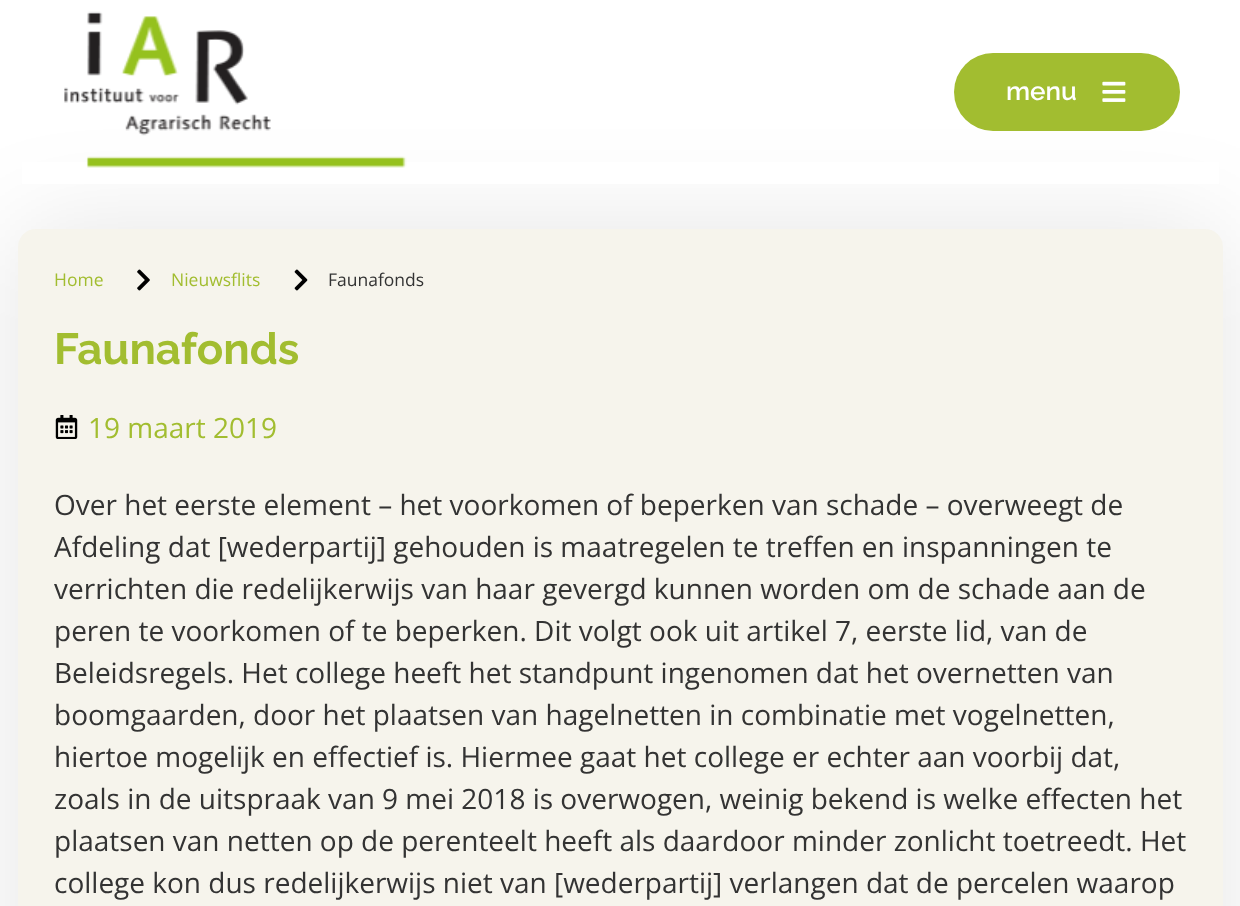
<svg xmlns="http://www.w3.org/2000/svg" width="1240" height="906">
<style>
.a{font:600 26px Raleway;fill:#fff}
.b{font:17.5px Open Sans;fill:#a2bd30}
.c{font:17.5px Open Sans;fill:#333}
.d{font:bold 43.75px Raleway;fill:#a2bd30}
.e{font:28px Open Sans;fill:#a2bd30}
.f{font:28px Open Sans;fill:#333}
</style>
<rect width="100%" height="100%" fill="#fff"/>
<rect fill="#0000001a" filter="blur(52.5px)" x="18" y="229" width="1205" height="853" rx="18"/>
<path fill="#fff" d="M22 162h1197v22H22z"/>
<image href="1.png" x="64" y="11" width="343" height="157"/>
<rect fill="#a2bd30" x="954" y="53" width="226" height="78" rx="39"/>
<image href="2.png" x="1102" y="81" width="24" height="21"/>
<rect fill="#f6f4ec" x="18" y="229" width="1205" height="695" rx="18"/>
<image href="3.png" x="137" y="269" width="13" height="22"/>
<image href="4.png" x="294" y="269" width="14" height="22"/>
<image href="5.png" x="55" y="415" width="23" height="24"/>
<text class="a" x="1006" y="100">menu</text>
<text class="b" x="54" y="286">Home</text>
<text class="b" x="171" y="286">Nieuwsflits</text>
<text class="c" x="328" y="286">Faunafonds</text>
<text class="d" x="54" y="364">Faunafonds</text>
<text class="e" x="88" y="438">19 maart 2019</text>
<text class="f" x="54" y="515">Over het eerste element – het voorkomen of beperken van schade – overweegt de</text>
<text class="f" x="54" y="557">Afdeling dat [wederpartij] gehouden is maatregelen te treffen en inspanningen te</text>
<text class="f" x="54" y="599">verrichten die redelijkerwijs van haar gevergd kunnen worden om de schade aan de</text>
<text class="f" x="54" y="641">peren te voorkomen of te beperken. Dit volgt ook uit artikel 7, eerste lid, van de</text>
<text class="f" x="54" y="683">Beleidsregels. Het college heeft het standpunt ingenomen dat het overnetten van</text>
<text class="f" x="54" y="725">boomgaarden, door het plaatsen van hagelnetten in combinatie met vogelnetten,</text>
<text class="f" x="54" y="767">hiertoe mogelijk en effectief is. Hiermee gaat het college er echter aan voorbij dat,</text>
<text class="f" x="54" y="809">zoals in de uitspraak van 9 mei 2018 is overwogen, weinig bekend is welke effecten het</text>
<text class="f" x="54" y="851">plaatsen van netten op de perenteelt heeft als daardoor minder zonlicht toetreedt. Het</text>
<text class="f" x="54" y="893">college kon dus redelijkerwijs niet van [wederpartij] verlangen dat de percelen waarop</text>
</svg>
